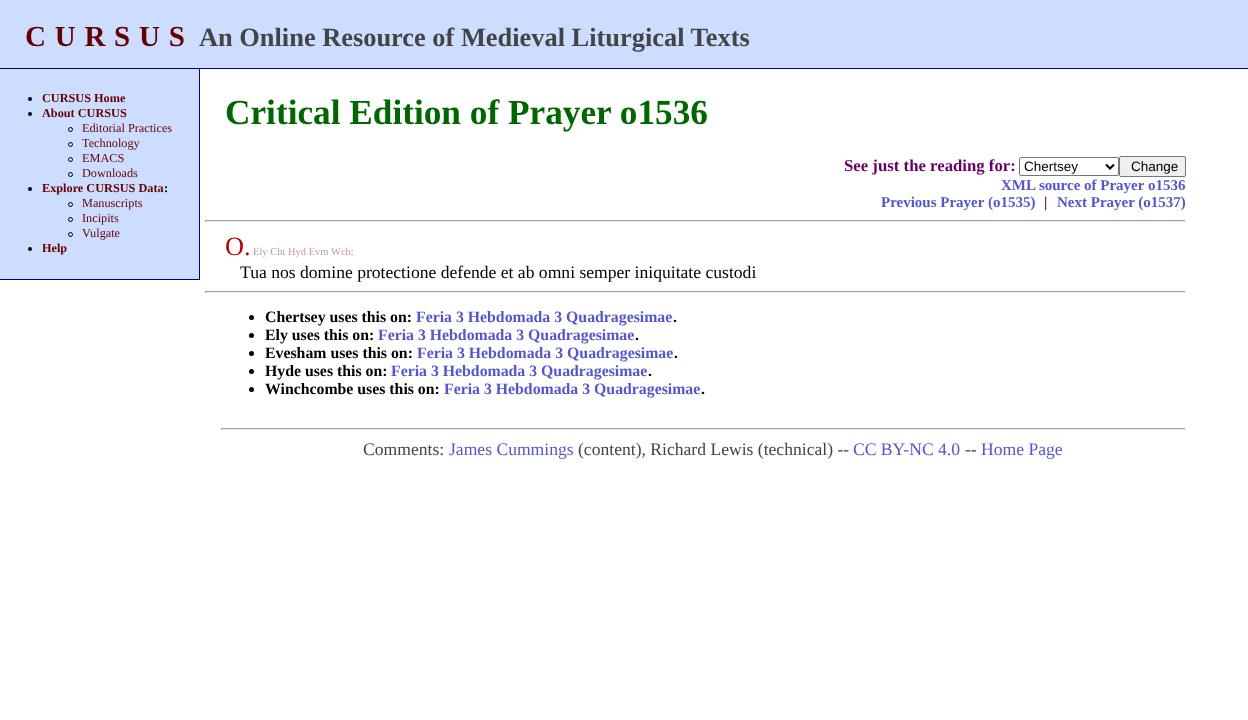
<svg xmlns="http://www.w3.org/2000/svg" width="1248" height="720">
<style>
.a{font:bold 29px Liberation Serif;letter-spacing:8.75px;fill:#600}
.b{font:bold 26.4px Liberation Serif;fill:#444}
.c{font:bold 12.25px Liberation Serif;fill:#600}
.d{font:12.25px Liberation Serif;fill:#600}
.e{font:bold 12.25px Liberation Serif;fill:#000}
.f{font:bold 35.25px Liberation Serif;fill:#060}
.g{font:bold 16.75px Liberation Serif;fill:#606}
.h{font:13.5px Liberation Sans;fill:#000}
.i{font:bold 15px Liberation Serif;fill:#55c}
.j{font:bold 15px Liberation Serif;fill:#606}
.k{font:26.4px Liberation Serif;fill:#b00}
.l{font:10.5px Liberation Serif;fill:#b99}
.m{font:17.6px Liberation Serif;fill:#000}
.n{font:bold 15.8px Liberation Serif;fill:#000}
.o{font:bold 15.8px Liberation Serif;fill:#55c}
.p{font:17.6px Liberation Serif;fill:#444}
.q{font:17.6px Liberation Serif;fill:#55c}
</style>
<rect width="100%" height="100%" fill="#fff"/>
<path fill="#cdf" d="M0 0h1248v68H0z"/>
<path fill="#009" d="M0 68h1248v1H0z"/>
<path fill="#cdf" d="M0 69h199v210H0z"/>
<path fill="#009" d="M199 69h1v211H199z"/>
<path fill="#009" d="M0 279h200v1H0z"/>
<circle fill="#000" cx="30" cy="99" r="2"/>
<circle fill="#000" cx="30" cy="114" r="2"/>
<circle fill="none" stroke="#000" cx="70.5" cy="129.5" r="2"/>
<circle fill="none" stroke="#000" cx="70.5" cy="144.5" r="2"/>
<circle fill="none" stroke="#000" cx="70.5" cy="159.5" r="2"/>
<circle fill="none" stroke="#000" cx="70.5" cy="174.5" r="2"/>
<circle fill="#000" cx="30" cy="189" r="2"/>
<circle fill="none" stroke="#000" cx="70.5" cy="204.5" r="2"/>
<circle fill="none" stroke="#000" cx="70.5" cy="219.5" r="2"/>
<circle fill="none" stroke="#000" cx="70.5" cy="234.5" r="2"/>
<circle fill="#000" cx="30" cy="249" r="2"/>
<rect fill="none" stroke="#767676" x="1019.5" y="157.5" width="99" height="18" rx="1.5"/>
<path fill="none" stroke="#000" stroke-width="2" d="M1106 164.5l4 4l4-4"/>
<rect fill="#efefef" stroke="#767676" x="1119.5" y="156.5" width="66" height="20" rx="1.5"/>
<path fill="#9f9f9f" d="M205 220h981v1H205z"/>
<path fill="#eee" d="M1185 220h1v2H1185z"/>
<path fill="#eee" d="M205 221h981v1H205z"/>
<path fill="#9f9f9f" d="M205 220h1v2H205z"/>
<path fill="#9f9f9f" d="M205 291h981v1H205z"/>
<path fill="#eee" d="M1185 291h1v2H1185z"/>
<path fill="#eee" d="M205 292h981v1H205z"/>
<path fill="#9f9f9f" d="M205 291h1v2H205z"/>
<circle fill="#000" cx="251.5" cy="317.5" r="2.5"/>
<circle fill="#000" cx="251.5" cy="335.5" r="2.5"/>
<circle fill="#000" cx="251.5" cy="353.5" r="2.5"/>
<circle fill="#000" cx="251.5" cy="371.5" r="2.5"/>
<circle fill="#000" cx="251.5" cy="389.5" r="2.5"/>
<path fill="#9f9f9f" d="M221 428h965v1H221z"/>
<path fill="#eee" d="M1185 428h1v2H1185z"/>
<path fill="#eee" d="M221 429h965v1H221z"/>
<path fill="#9f9f9f" d="M221 428h1v2H221z"/>
<text class="a" x="25" y="46">CURSUS</text>
<text class="b" x="199" y="46">An Online Resource of Medieval Liturgical Texts</text>
<text class="c" x="42" y="102">CURSUS Home</text>
<text class="c" x="42" y="117">About CURSUS</text>
<text class="d" x="82" y="132">Editorial Practices</text>
<text class="d" x="82" y="147">Technology</text>
<text class="d" x="82" y="162">EMACS</text>
<text class="d" x="82" y="177">Downloads</text>
<text class="c" x="42" y="192">Explore CURSUS Data</text>
<text class="e" x="164" y="192">:</text>
<text class="d" x="82" y="207">Manuscripts</text>
<text class="d" x="82" y="222">Incipits</text>
<text class="d" x="82" y="237">Vulgate</text>
<text class="c" x="42" y="252">Help</text>
<text class="f" x="225" y="124">Critical Edition of Prayer o1536</text>
<text class="g" x="844" y="171">See just the reading for:</text>
<text class="h" x="1024" y="171">Chertsey</text>
<text class="h" x="1131" y="171">Change</text>
<text class="i" x="1001" y="190">XML source of Prayer o1536</text>
<text class="i" x="881" y="207">Previous Prayer (o1535)</text>
<text class="j" x="1044" y="207">|</text>
<text class="i" x="1057" y="207">Next Prayer (o1537)</text>
<text class="k" x="225" y="255">O.</text>
<text class="l" x="253" y="255">Ely Cht Hyd Evm Wcb:</text>
<text class="m" x="240" y="278">Tua nos domine protectione defende et ab omni semper iniquitate custodi</text>
<text class="n" x="265" y="322">Chertsey uses this on:</text>
<text class="o" x="416" y="322">Feria 3 Hebdomada 3 Quadragesimae</text>
<text class="n" x="673" y="322">.</text>
<text class="n" x="265" y="340">Ely uses this on:</text>
<text class="o" x="378" y="340">Feria 3 Hebdomada 3 Quadragesimae</text>
<text class="n" x="635" y="340">.</text>
<text class="n" x="265" y="358">Evesham uses this on:</text>
<text class="o" x="417" y="358">Feria 3 Hebdomada 3 Quadragesimae</text>
<text class="n" x="674" y="358">.</text>
<text class="n" x="265" y="376">Hyde uses this on:</text>
<text class="o" x="391" y="376">Feria 3 Hebdomada 3 Quadragesimae</text>
<text class="n" x="648" y="376">.</text>
<text class="n" x="265" y="394">Winchcombe uses this on:</text>
<text class="o" x="444" y="394">Feria 3 Hebdomada 3 Quadragesimae</text>
<text class="n" x="701" y="394">.</text>
<text class="p" x="363" y="455">Comments:</text>
<text class="q" x="449" y="455">James Cummings</text>
<text class="p" x="578" y="455">(content), Richard Lewis (technical) --</text>
<text class="q" x="853" y="455">CC BY-NC 4.0</text>
<text class="p" x="965" y="455">--</text>
<text class="q" x="981" y="455">Home Page</text>
</svg>
